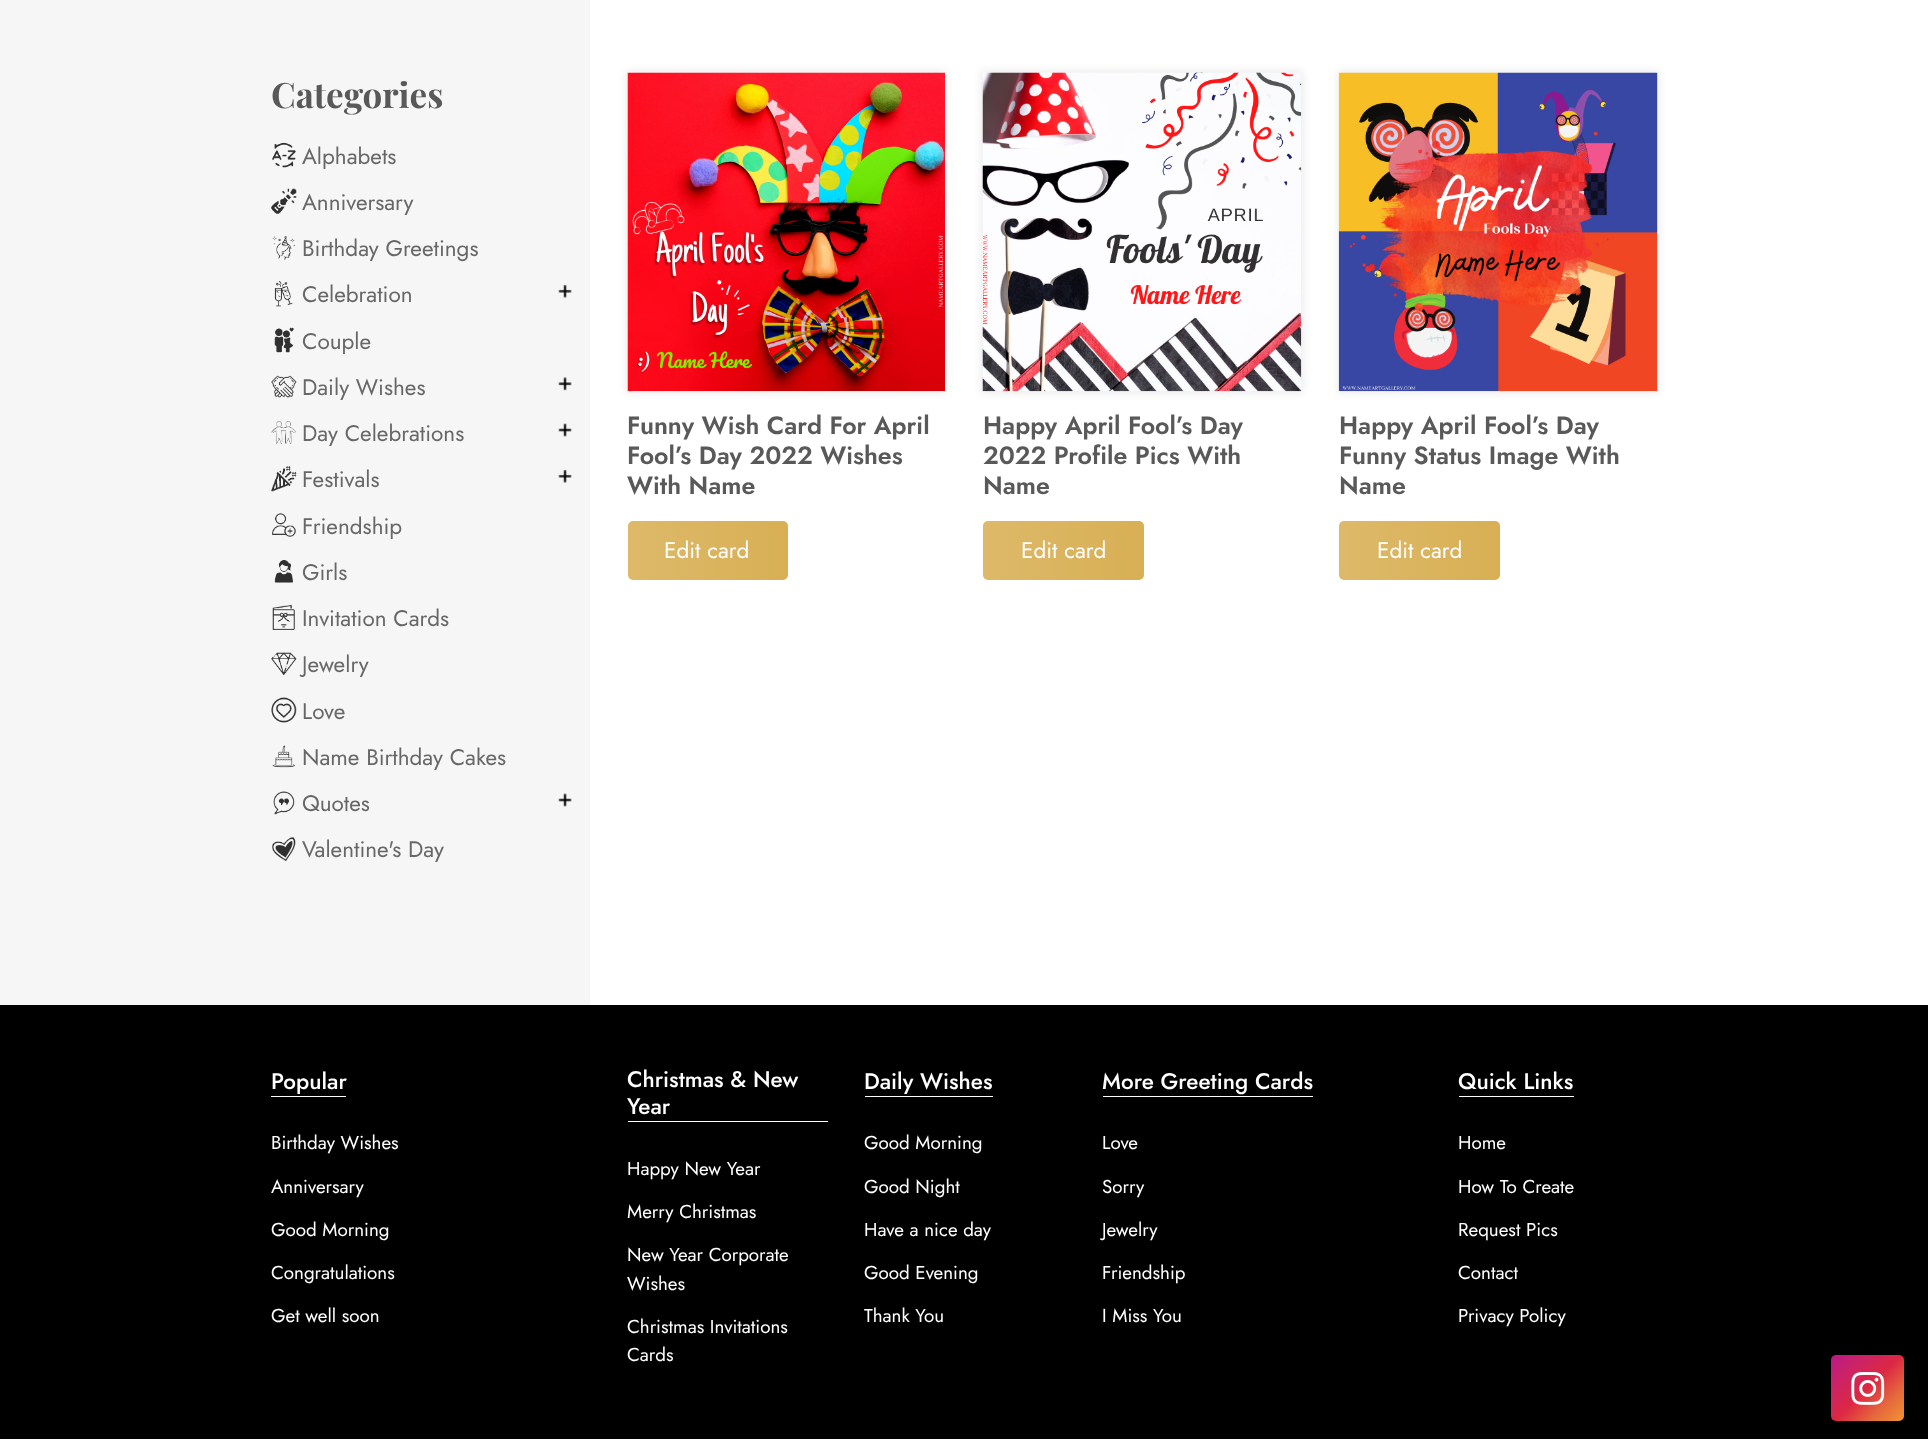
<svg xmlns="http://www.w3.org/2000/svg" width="1928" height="1446">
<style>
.a{font:bold 35px Playfair Display;fill:#5a5959}
.b{font:22.5px Jost;fill:#676767}
.c{font:600 25px Jost;fill:#5a5959}
.d{font:22.5px Jost;fill:#fff}
.e{font:500 22.5px Jost;fill:#fff}
.f{font:18.75px Jost;fill:#fff}
</style>
<defs>
<linearGradient id="g1" gradientUnits="userSpaceOnUse" x1="788" y1="551" x2="628" y2="551"><stop offset="0" stop-color="#d8af54"/><stop offset="1" stop-color="#ddb969"/></linearGradient>
<linearGradient id="g2" gradientUnits="userSpaceOnUse" x1="1144" y1="551" x2="983" y2="551"><stop offset="0" stop-color="#d8af54"/><stop offset="1" stop-color="#ddb969"/></linearGradient>
<linearGradient id="g3" gradientUnits="userSpaceOnUse" x1="1500" y1="551" x2="1339" y2="551"><stop offset="0" stop-color="#d8af54"/><stop offset="1" stop-color="#ddb969"/></linearGradient>
<linearGradient id="g4" gradientUnits="userSpaceOnUse" x1="1902" y1="1423" x2="1833" y2="1353"><stop offset="0" stop-color="#f09433"/><stop offset="0.25" stop-color="#e6683c"/><stop offset="0.5" stop-color="#dc2743"/><stop offset="0.75" stop-color="#cc2366"/><stop offset="1" stop-color="#bc1888"/></linearGradient>
</defs>
<rect width="100%" height="100%" fill="#fff"/>
<path fill="#f6f6f6" d="M0 0h590v1005H0z"/>
<image href="1.png" x="272" y="142" width="24" height="26"/>
<image href="2.png" x="271" y="188" width="26" height="26"/>
<image href="3.png" x="272" y="236" width="23" height="24"/>
<image href="4.png" x="274" y="281" width="19" height="26"/>
<image href="5.png" x="558" y="284" width="14" height="14"/>
<image href="6.png" x="274" y="327" width="20" height="26"/>
<image href="7.png" x="271" y="375" width="26" height="23"/>
<image href="8.png" x="558" y="377" width="14" height="14"/>
<image href="9.png" x="271" y="421" width="26" height="23"/>
<image href="10.png" x="558" y="423" width="14" height="14"/>
<image href="11.png" x="271" y="466" width="26" height="26"/>
<image href="5.png" x="558" y="469" width="14" height="14"/>
<image href="12.png" x="272" y="513" width="24" height="24"/>
<image href="13.png" x="274" y="560" width="19" height="23"/>
<image href="14.png" x="272" y="605" width="23" height="25"/>
<image href="15.png" x="271" y="652" width="26" height="23"/>
<image href="16.png" x="271" y="697" width="26" height="26"/>
<image href="17.png" x="272" y="745" width="23" height="23"/>
<image href="18.png" x="273" y="791" width="22" height="24"/>
<image href="10.png" x="558" y="793" width="14" height="14"/>
<image href="19.png" x="272" y="837" width="24" height="25"/>
<path fill="#00000014" filter="blur(4.5px)" d="M626 71h320v322H626z"/>
<image href="20.png" x="627" y="72" width="318" height="320"/>
<rect fill="url(#g1)" x="628" y="521" width="160" height="59" rx="5"/>
<path fill="#00000014" filter="blur(4.5px)" d="M981 71h322v322H981z"/>
<image href="21.png" x="982" y="72" width="320" height="320"/>
<rect fill="url(#g2)" x="983" y="521" width="161" height="59" rx="5"/>
<path fill="#00000014" filter="blur(4.5px)" d="M1338 71h321v322H1338z"/>
<path fill="#fff" d="M1657 73h1v318H1657z"/>
<image href="22.png" x="1338" y="72" width="320" height="320"/>
<rect fill="url(#g3)" x="1339" y="521" width="161" height="59" rx="5"/>
<path fill="#000" d="M0 1005h1928v434H0z"/>
<path fill="#fff" d="M271 1096h75v1H271z"/>
<path fill="#fff" d="M628 1121h200v1H628z"/>
<path fill="#fff" d="M865 1096h128v1H865z"/>
<path fill="#fff" d="M1103 1096h210v1H1103z"/>
<path fill="#fff" d="M1459 1096h115v1H1459z"/>
<rect fill="url(#g4)" x="1831" y="1355" width="73" height="66" rx="5"/>
<image href="23.png" x="1851" y="1372" width="34" height="33"/>
<text class="a" x="271" y="108">Categories</text>
<text class="b" x="302" y="164">Alphabets</text>
<text class="b" x="302" y="210">Anniversary</text>
<text class="b" x="302" y="256">Birthday Greetings</text>
<text class="b" x="302" y="302">Celebration</text>
<text class="b" x="302" y="349">Couple</text>
<text class="b" x="302" y="395">Daily Wishes</text>
<text class="b" x="302" y="441">Day Celebrations</text>
<text class="b" x="302" y="487">Festivals</text>
<text class="b" x="302" y="534">Friendship</text>
<text class="b" x="302" y="580">Girls</text>
<text class="b" x="302" y="626">Invitation Cards</text>
<text class="b" x="302" y="672">Jewelry</text>
<text class="b" x="302" y="719">Love</text>
<text class="b" x="302" y="765">Name Birthday Cakes</text>
<text class="b" x="302" y="811">Quotes</text>
<text class="b" x="302" y="857">Valentine's Day</text>
<text class="c" x="627" y="434">Funny Wish Card For April</text>
<text class="c" x="627" y="464">Fool’s Day 2022 Wishes</text>
<text class="c" x="627" y="494">With Name</text>
<text class="d" x="664" y="558">Edit card</text>
<text class="c" x="983" y="434">Happy April Fool’s Day</text>
<text class="c" x="983" y="464">2022 Profile Pics With</text>
<text class="c" x="983" y="494">Name</text>
<text class="d" x="1021" y="558">Edit card</text>
<text class="c" x="1339" y="434">Happy April Fool’s Day</text>
<text class="c" x="1339" y="464">Funny Status Image With</text>
<text class="c" x="1339" y="494">Name</text>
<text class="d" x="1377" y="558">Edit card</text>
<text class="e" x="271" y="1089">Popular</text>
<text class="f" x="271" y="1149">Birthday Wishes</text>
<text class="f" x="271" y="1193">Anniversary</text>
<text class="f" x="271" y="1236">Good Morning</text>
<text class="f" x="271" y="1279">Congratulations</text>
<text class="f" x="271" y="1322">Get well soon</text>
<text class="e" x="627" y="1087">Christmas &amp; New</text>
<text class="e" x="627" y="1114">Year</text>
<text class="f" x="627" y="1175">Happy New Year</text>
<text class="f" x="627" y="1218">Merry Christmas</text>
<text class="f" x="627" y="1261">New Year Corporate</text>
<text class="f" x="627" y="1290">Wishes</text>
<text class="f" x="627" y="1333">Christmas Invitations</text>
<text class="f" x="627" y="1361">Cards</text>
<text class="e" x="864" y="1089">Daily Wishes</text>
<text class="f" x="864" y="1149">Good Morning</text>
<text class="f" x="864" y="1193">Good Night</text>
<text class="f" x="864" y="1236">Have a nice day</text>
<text class="f" x="864" y="1279">Good Evening</text>
<text class="f" x="864" y="1322">Thank You</text>
<text class="e" x="1102" y="1089">More Greeting Cards</text>
<text class="f" x="1102" y="1149">Love</text>
<text class="f" x="1102" y="1193">Sorry</text>
<text class="f" x="1102" y="1236">Jewelry</text>
<text class="f" x="1102" y="1279">Friendship</text>
<text class="f" x="1102" y="1322">I Miss You</text>
<text class="e" x="1458" y="1089">Quick Links</text>
<text class="f" x="1458" y="1149">Home</text>
<text class="f" x="1458" y="1193">How To Create</text>
<text class="f" x="1458" y="1236">Request Pics</text>
<text class="f" x="1458" y="1279">Contact</text>
<text class="f" x="1458" y="1322">Privacy Policy</text>
</svg>
